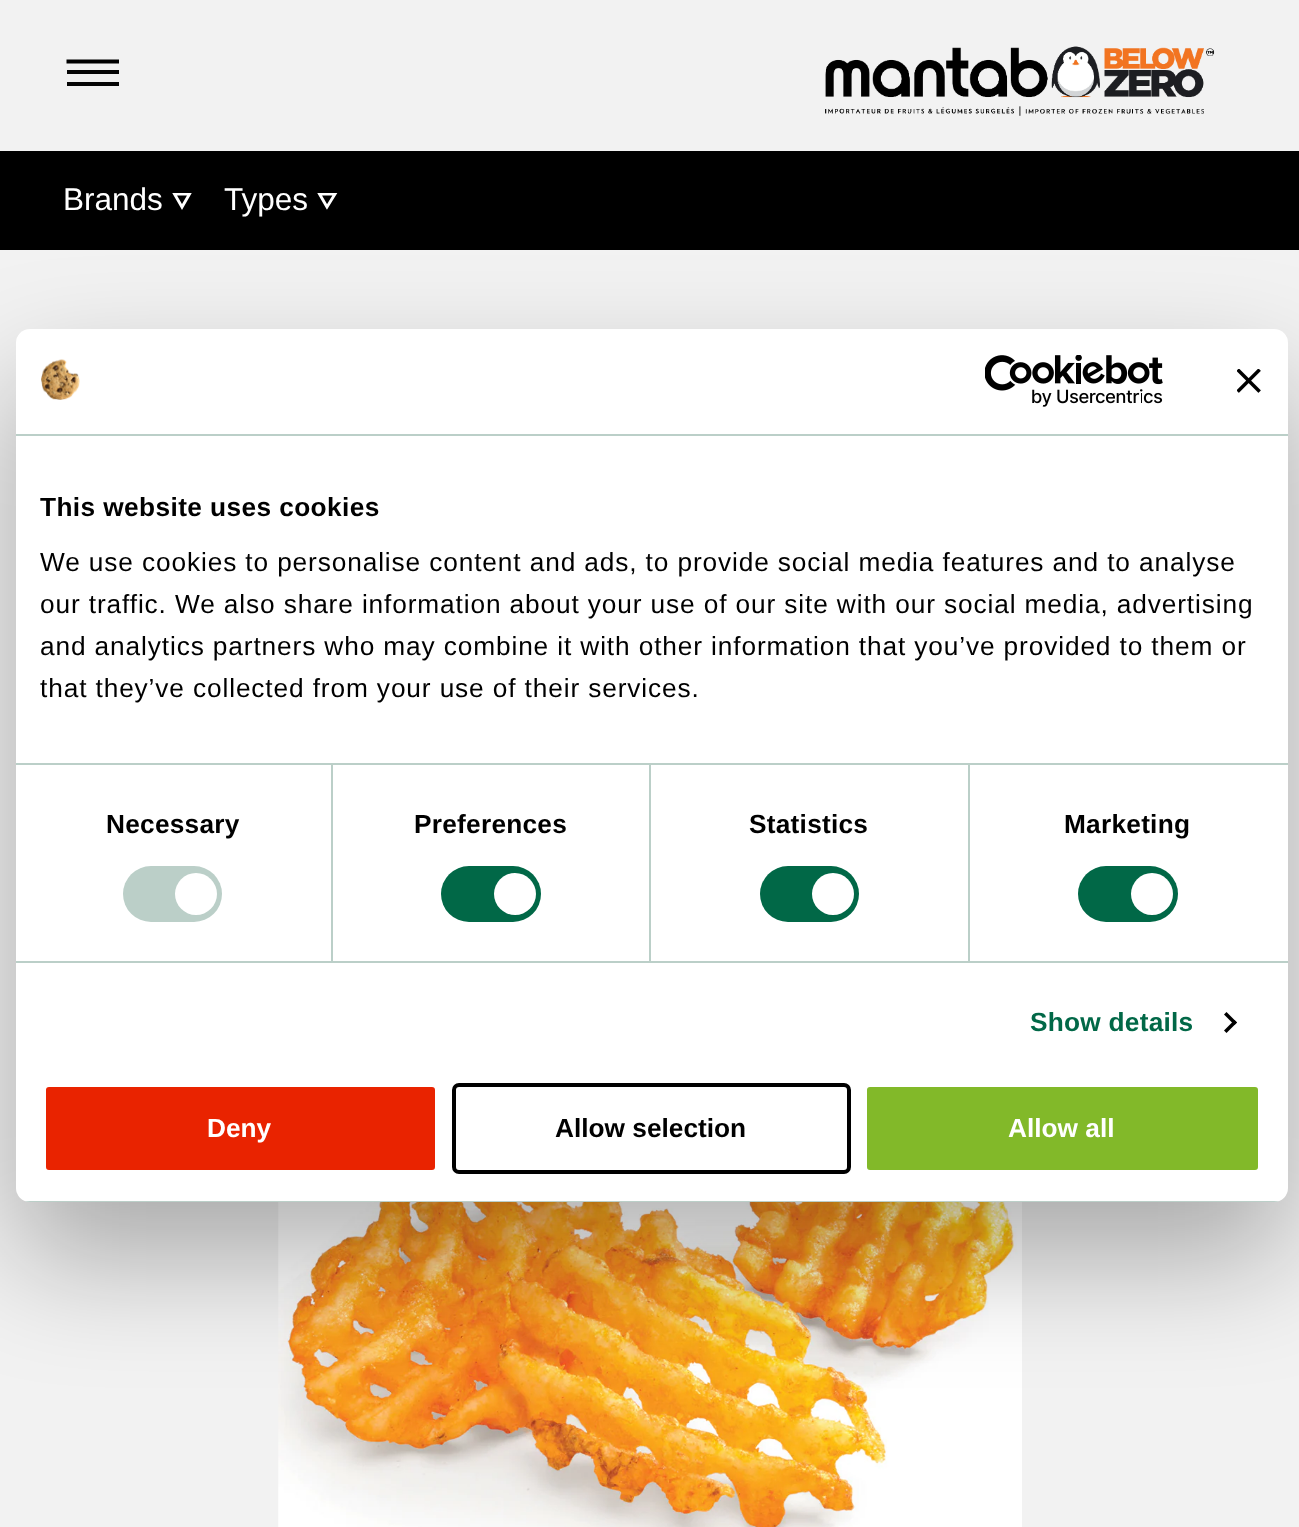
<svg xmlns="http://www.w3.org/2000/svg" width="1299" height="1527">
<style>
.a{font:31.5px Liberation Sans;fill:#fff}
.b{font:bold 26.25px Liberation Sans;letter-spacing:0.4px;fill:#000}
.c{font:26.25px Liberation Sans;letter-spacing:0.88px;fill:#000}
.d{font:bold 26.25px Liberation Sans;letter-spacing:0.25px;fill:#000}
.e{font:bold 26.25px Liberation Sans;letter-spacing:0.25px;fill:#016847}
.f{font:bold 26.25px Liberation Sans;fill:#fff}
.g{font:bold 26.25px Liberation Sans;fill:#000}
</style>
<defs>
<clipPath id="clip1"><path d="M172 193h21v17H172z"/></clipPath>
<clipPath id="clip2"><path d="M317 193h21v17H317z"/></clipPath>
<clipPath id="clip3"><rect x="16" y="329" width="1272" height="873" rx="14"/></clipPath>
</defs>
<rect width="100%" height="100%" fill="#f2f2f2"/>
<path fill="none" stroke="#000" stroke-width="3.9" d="M66.5 61.5h52.5"/>
<path fill="#060606" d="M67 70h52v4H67z"/>
<path fill="#060606" d="M67 82h52v4H67z"/>
<image href="1.png" x="825" y="46" width="390" height="70"/>
<path fill="#000" d="M0 151h1299v99H0z"/>
<g clip-path="url(#clip1)">
<path fill="none" stroke="#fff" stroke-width="2.9" d="M182 207l-7.5-13h15z"/>
</g>
<g clip-path="url(#clip2)">
<path fill="none" stroke="#fff" stroke-width="2.9" d="M327 207l-7.5-13h15.5z"/>
</g>
<image href="5.png" x="278" y="1202" width="744" height="325"/>
<rect fill="#0000004d" filter="blur(59.5px)" x="16" y="385" width="1272" height="873" rx="14"/>
<rect fill="#fff" x="16" y="329" width="1272" height="873" rx="14"/>
<path fill="#bbcfc8" d="M16 434h1272v2H16z"/>
<image href="2.png" x="41" y="359" width="39" height="41"/>
<image href="3.png" x="985" y="355" width="178" height="52"/>
<image href="4.png" x="1237" y="369" width="24" height="24"/>
<path fill="#bbcfc8" d="M16 763h1272v2H16z"/>
<path fill="#bbcfc8" d="M16 961h1272v2H16z"/>
<path fill="#bbcfc8" d="M331 765h2v196H331z"/>
<rect fill="#bbcfc8" x="123" y="866" width="99" height="56" rx="28"/>
<circle fill="#fff" cx="196" cy="894" r="21"/>
<path fill="#bbcfc8" d="M649 765h2v196H649z"/>
<rect fill="#016847" x="441" y="866" width="100" height="56" rx="28"/>
<circle fill="#fff" cx="515" cy="894" r="21"/>
<path fill="#bbcfc8" d="M968 765h2v196H968z"/>
<rect fill="#016847" x="760" y="866" width="99" height="56" rx="28"/>
<circle fill="#fff" cx="833" cy="894" r="21"/>
<rect fill="#016847" x="1078" y="866" width="100" height="56" rx="28"/>
<circle fill="#fff" cx="1152" cy="894" r="21"/>
<path fill="#000" d="M1226.5 1012l10.5 10.5l-2.5 2.5l-10.5-10.5z"/>
<path fill="#000" d="M1234.5 1020l2.5 2.5l-10.5 10.5l-2.5-2.5z"/>
<g clip-path="url(#clip3)">
<path fill="#bbcfc8" d="M25 1201h1254v1H25z"/>
</g>
<rect fill="#e92300" stroke="#fff" stroke-width="4" x="44" y="1085" width="393" height="87" rx="5"/>
<rect fill="none" stroke="#000" stroke-width="4" x="454" y="1085" width="395" height="87" rx="5"/>
<rect fill="#82b929" stroke="#fff" stroke-width="4" x="865" y="1085" width="395" height="87" rx="5"/>
<text class="a" x="63" y="210">Brands</text>
<text class="a" x="224" y="210">Types</text>
<text class="b" x="40" y="516">This website uses cookies</text>
<text class="c" x="40" y="571">We use cookies to personalise content and ads, to provide social media features and to analyse</text>
<text class="c" x="40" y="613">our traffic. We also share information about your use of our site with our social media, advertising</text>
<text class="c" x="40" y="655">and analytics partners who may combine it with other information that you’ve provided to them or</text>
<text class="c" x="40" y="697">that they’ve collected from your use of their services.</text>
<text class="d" x="106" y="833">Necessary</text>
<text class="d" x="414" y="833">Preferences</text>
<text class="d" x="749" y="833">Statistics</text>
<text class="d" x="1064" y="833">Marketing</text>
<text class="e" x="1030" y="1031">Show details</text>
<text class="f" x="207" y="1137">Deny</text>
<text class="g" x="555" y="1137">Allow selection</text>
<text class="f" x="1008" y="1137">Allow all</text>
</svg>
